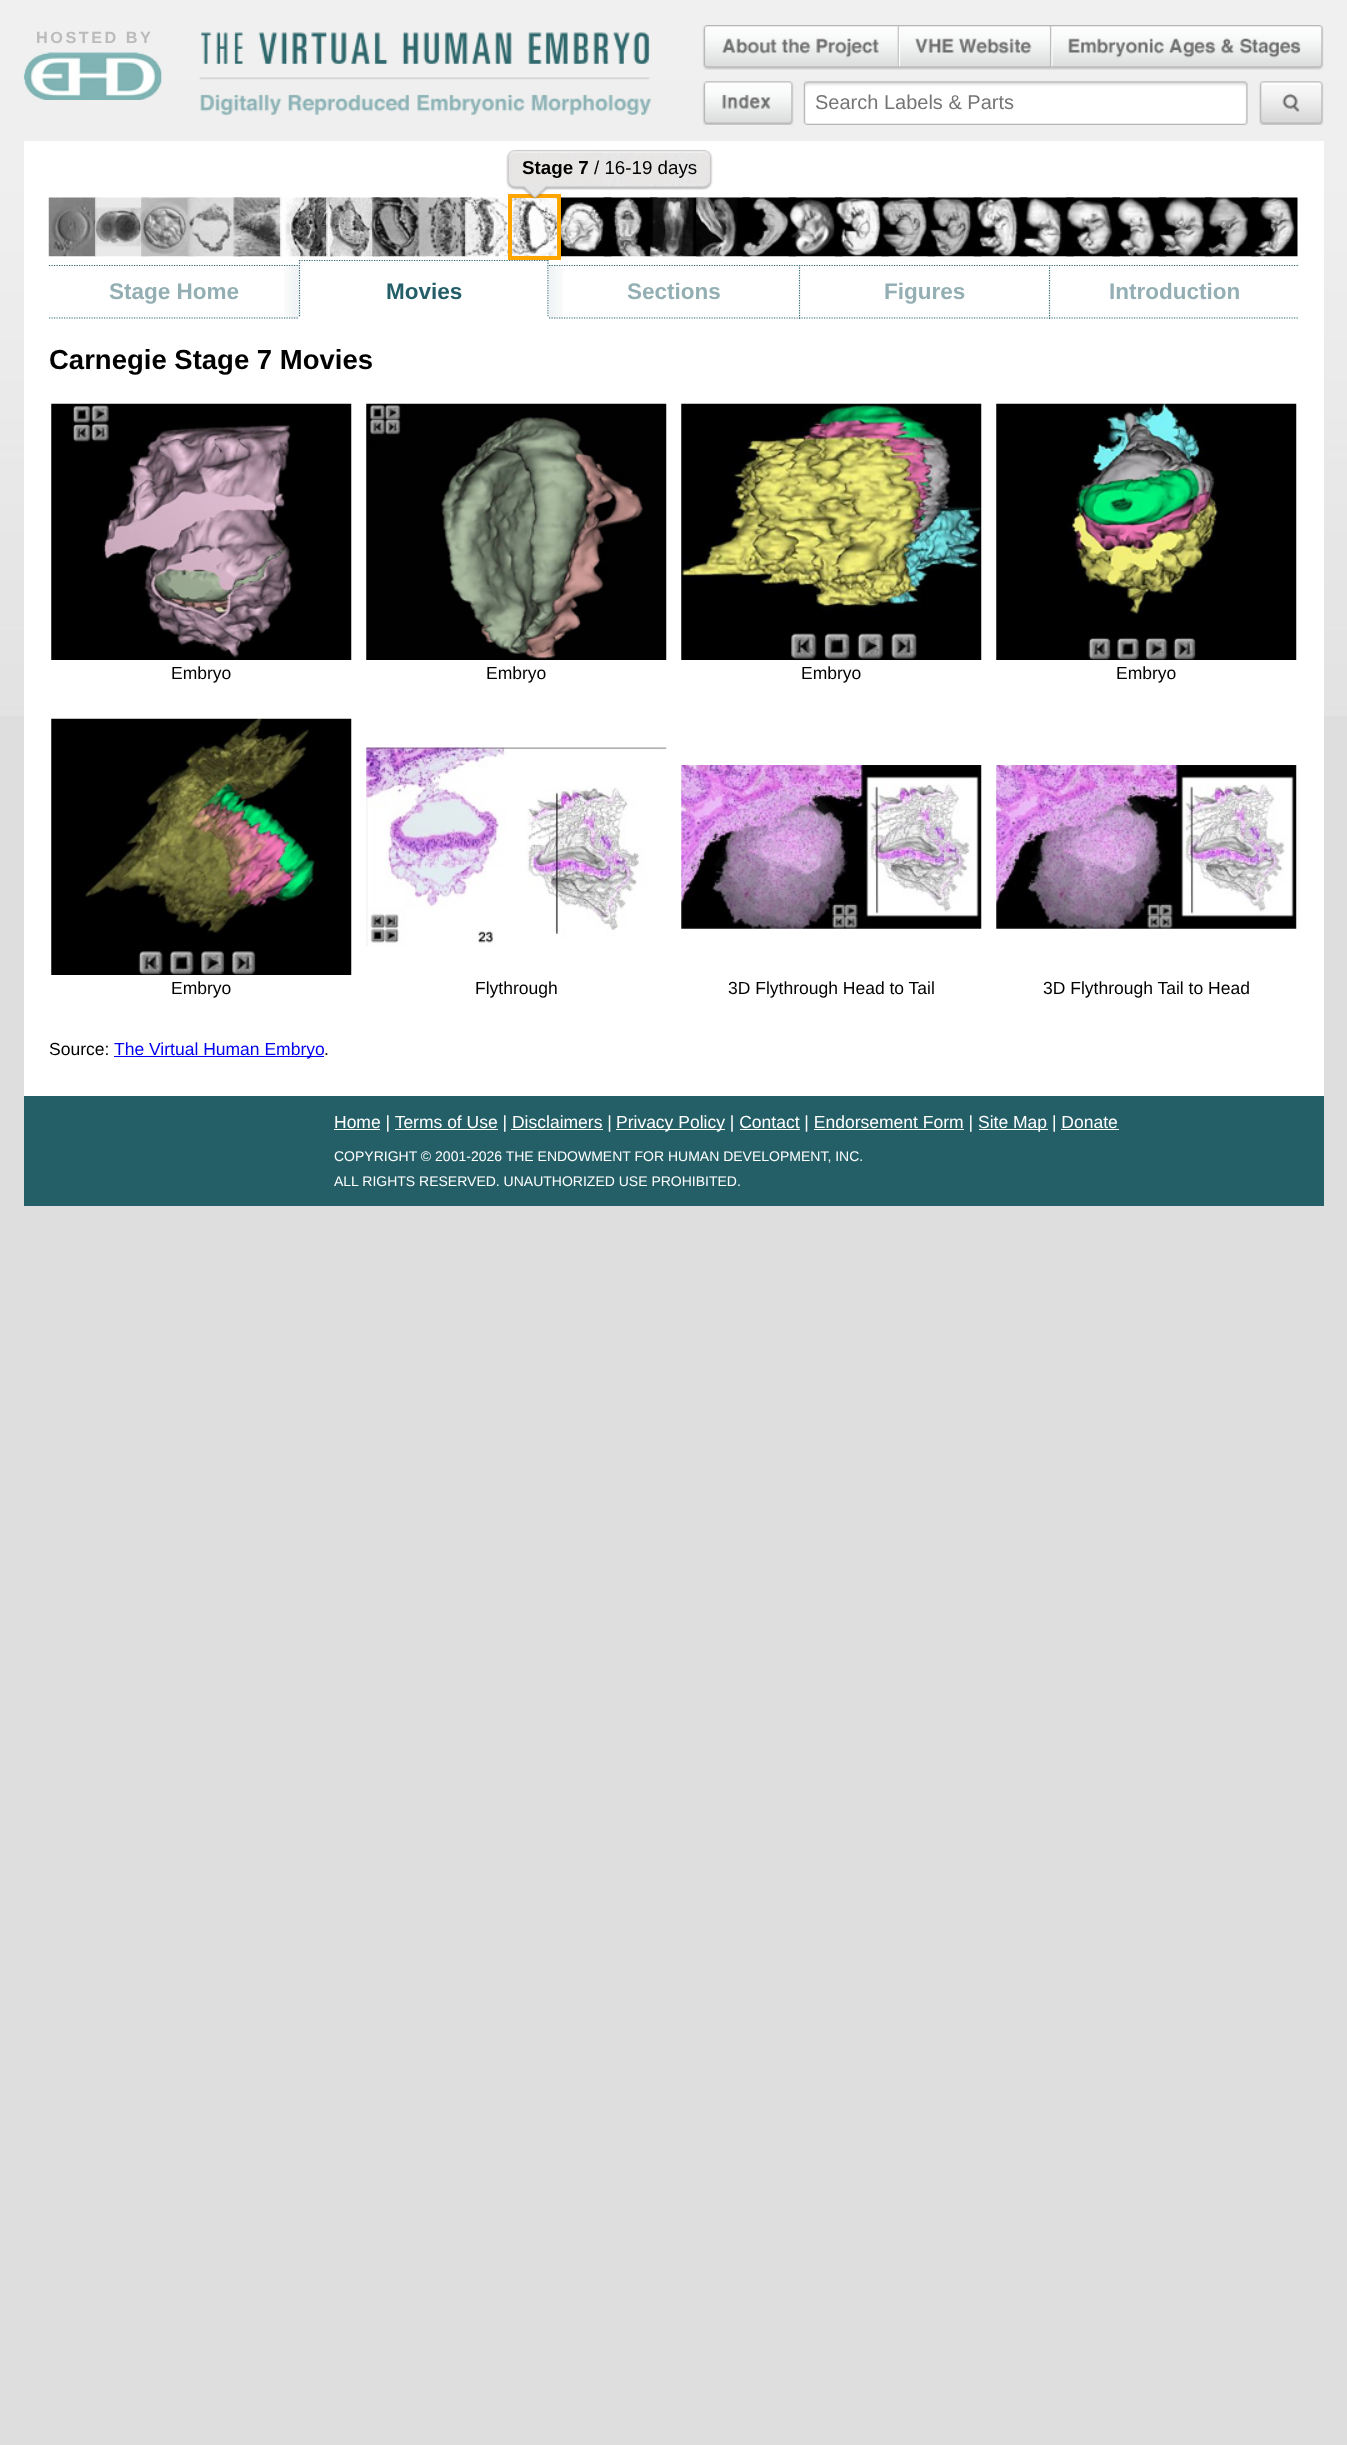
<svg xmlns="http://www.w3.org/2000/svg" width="1347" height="2445">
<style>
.a{font:bold 16.25px Liberation Sans;letter-spacing:2.5px;fill:#bbb}
.b{font:20px Liberation Sans;fill:#757575}
.c{font:bold 18.75px Liberation Sans;fill:#000}
.d{font:18.75px Liberation Sans;fill:#000}
.e{font:bold 22.5px Liberation Sans;fill:#93afb3}
.f{font:bold 22.5px Liberation Sans;fill:#245e68}
.g{font:bold 27.5px Liberation Sans;fill:#000}
.h{font:17.5px Liberation Sans;fill:#000}
.i{font:17.5px Liberation Sans;fill:#00e}
.j{font:17.5px Liberation Sans;fill:#fff}
.k{font:14px Liberation Sans;fill:#fff}
</style>
<defs>
<clipPath id="clip1"><path d="M49 260h1250v59H49z"/></clipPath>
</defs>
<rect width="100%" height="100%" fill="#dedede"/>
<image href="1.png" x="0" y="0" width="1347" height="716"/>
<image href="2.png" x="23" y="52" width="139" height="48"/>
<image href="3.png" x="199" y="32" width="453" height="83"/>
<image href="6.png" x="1051" y="25" width="273" height="45"/>
<image href="5.png" x="897" y="25" width="155" height="45"/>
<image href="4.png" x="702" y="25" width="196" height="45"/>
<image href="7.png" x="702" y="81" width="92" height="44"/>
<image href="8.png" x="803" y="81" width="445" height="44"/>
<image href="9.png" x="1259" y="81" width="65" height="44"/>
<path fill="#fff" d="M24 141h1300v955H24z"/>
<image href="12.png" x="48" y="197" width="55" height="60"/>
<image href="13.png" x="95" y="197" width="54" height="60"/>
<image href="14.png" x="141" y="197" width="54" height="60"/>
<image href="15.png" x="187" y="197" width="55" height="60"/>
<image href="16.png" x="233" y="197" width="55" height="60"/>
<image href="17.png" x="280" y="197" width="54" height="60"/>
<image href="18.png" x="326" y="197" width="54" height="60"/>
<image href="19.png" x="372" y="197" width="55" height="60"/>
<image href="20.png" x="418" y="197" width="55" height="60"/>
<image href="21.png" x="465" y="197" width="43" height="60"/>
<image href="22.png" x="561" y="197" width="51" height="60"/>
<image href="10.png" x="507" y="197" width="55" height="60"/>
<path fill="none" stroke="#ffa500" stroke-width="4" d="M510 196h49v62H510z"/>
<image href="23.png" x="603" y="197" width="55" height="60"/>
<image href="24.png" x="650" y="197" width="54" height="60"/>
<image href="25.png" x="696" y="197" width="54" height="60"/>
<image href="11.png" x="506" y="149" width="207" height="50"/>
<image href="26.png" x="742" y="197" width="55" height="60"/>
<image href="27.png" x="788" y="197" width="55" height="60"/>
<image href="28.png" x="835" y="197" width="54" height="60"/>
<image href="29.png" x="881" y="197" width="54" height="60"/>
<image href="30.png" x="927" y="197" width="55" height="60"/>
<image href="31.png" x="973" y="197" width="55" height="60"/>
<image href="32.png" x="1020" y="197" width="54" height="60"/>
<image href="33.png" x="1066" y="197" width="54" height="60"/>
<image href="34.png" x="1112" y="197" width="55" height="60"/>
<image href="35.png" x="1158" y="197" width="55" height="60"/>
<image href="36.png" x="1205" y="197" width="54" height="60"/>
<image href="37.png" x="1251" y="197" width="47" height="60"/>
<image href="38.png" x="284" y="265" width="15" height="54"/>
<path fill="none" stroke="#326873" stroke-width="1.2" stroke-dasharray="1.25 1.25" d="M49 265.5h250"/>
<path fill="none" stroke="#326873" stroke-width="1.2" stroke-dasharray="1.25 1.25" d="M49 318h250"/>
<g clip-path="url(#clip1)">
<path fill="none" stroke="#326873" stroke-width="1.2" stroke-dasharray="1.25 1.25" d="M299 260.5h250"/>
</g>
<path fill="none" stroke="#326873" stroke-width="1.2" stroke-dasharray="1.25 1.25" d="M548 260v57.5"/>
<path fill="none" stroke="#326873" stroke-width="1.2" stroke-dasharray="1.25 1.25" d="M299.5 260v57.5"/>
<image href="39.png" x="548" y="265" width="15" height="54"/>
<path fill="none" stroke="#326873" stroke-width="1.2" stroke-dasharray="1.25 1.25" d="M549 265.5h250"/>
<path fill="none" stroke="#326873" stroke-width="1.2" stroke-dasharray="1.25 1.25" d="M549 318h250"/>
<path fill="none" stroke="#326873" stroke-width="1.2" stroke-dasharray="1.25 1.25" d="M799 265.5h250"/>
<path fill="none" stroke="#326873" stroke-width="1.2" stroke-dasharray="1.25 1.25" d="M799 318h250"/>
<path fill="none" stroke="#326873" stroke-width="1.2" stroke-dasharray="1.25 1.25" d="M799.5 265v54"/>
<path fill="none" stroke="#326873" stroke-width="1.2" stroke-dasharray="1.25 1.25" d="M1049 265.5h250"/>
<path fill="none" stroke="#326873" stroke-width="1.2" stroke-dasharray="1.25 1.25" d="M1049 318h250"/>
<path fill="none" stroke="#326873" stroke-width="1.2" stroke-dasharray="1.25 1.25" d="M1049.5 265v54"/>
<image href="40.png" x="51" y="403" width="301" height="257"/>
<image href="41.png" x="366" y="403" width="301" height="257"/>
<image href="42.png" x="681" y="403" width="301" height="257"/>
<image href="43.png" x="996" y="403" width="301" height="257"/>
<image href="44.png" x="51" y="718" width="301" height="257"/>
<image href="45.png" x="366" y="747" width="301" height="199"/>
<image href="46.png" x="681" y="765" width="301" height="164"/>
<image href="47.png" x="996" y="765" width="301" height="164"/>
<path fill="#00e" d="M114 1056h210v1H114z"/>
<path fill="#245f68" d="M24 1096h1300v110H24z"/>
<path fill="#fff" d="M334 1129h46v1H334z"/>
<path fill="#fff" d="M616 1129h109v1H616z"/>
<path fill="#fff" d="M979 1129h69v1H979z"/>
<path fill="#fff" d="M395 1129h103v1H395z"/>
<path fill="#fff" d="M511 1129h92v1H511z"/>
<path fill="#fff" d="M740 1129h60v1H740z"/>
<path fill="#fff" d="M814 1129h150v1H814z"/>
<path fill="#fff" d="M1061 1129h58v1H1061z"/>
<text class="a" x="36" y="43">HOSTED BY</text>
<text class="b" x="815" y="109">Search Labels &amp; Parts</text>
<text class="c" x="522" y="174">Stage 7</text>
<text class="d" x="594" y="174">/ 16-19 days</text>
<text class="e" x="109" y="299">Stage Home</text>
<text class="f" x="386" y="299">Movies</text>
<text class="e" x="627" y="299">Sections</text>
<text class="e" x="884" y="299">Figures</text>
<text class="e" x="1109" y="299">Introduction</text>
<text class="g" x="49" y="369">Carnegie Stage 7 Movies</text>
<text class="h" x="171" y="679">Embryo</text>
<text class="h" x="486" y="679">Embryo</text>
<text class="h" x="801" y="679">Embryo</text>
<text class="h" x="1116" y="679">Embryo</text>
<text class="h" x="171" y="994">Embryo</text>
<text class="h" x="475" y="994">Flythrough</text>
<text class="h" x="728" y="994">3D Flythrough Head to Tail</text>
<text class="h" x="1043" y="994">3D Flythrough Tail to Head</text>
<text class="h" x="49" y="1055">Source:</text>
<text class="i" x="114" y="1055">The Virtual Human Embryo</text>
<text class="h" x="324" y="1055">.</text>
<text class="j" x="334" y="1128">Home | Terms of Use | Disclaimers |</text>
<text class="j" x="616" y="1128">Privacy Policy | Contact | Endorsement Form |</text>
<text class="j" x="978" y="1128">Site Map | Donate</text>
<text class="k" x="334" y="1161">COPYRIGHT © 2001-2026 THE ENDOWMENT FOR HUMAN DEVELOPMENT, INC.</text>
<text class="k" x="334" y="1186">ALL RIGHTS RESERVED. UNAUTHORIZED USE PROHIBITED.</text>
</svg>
